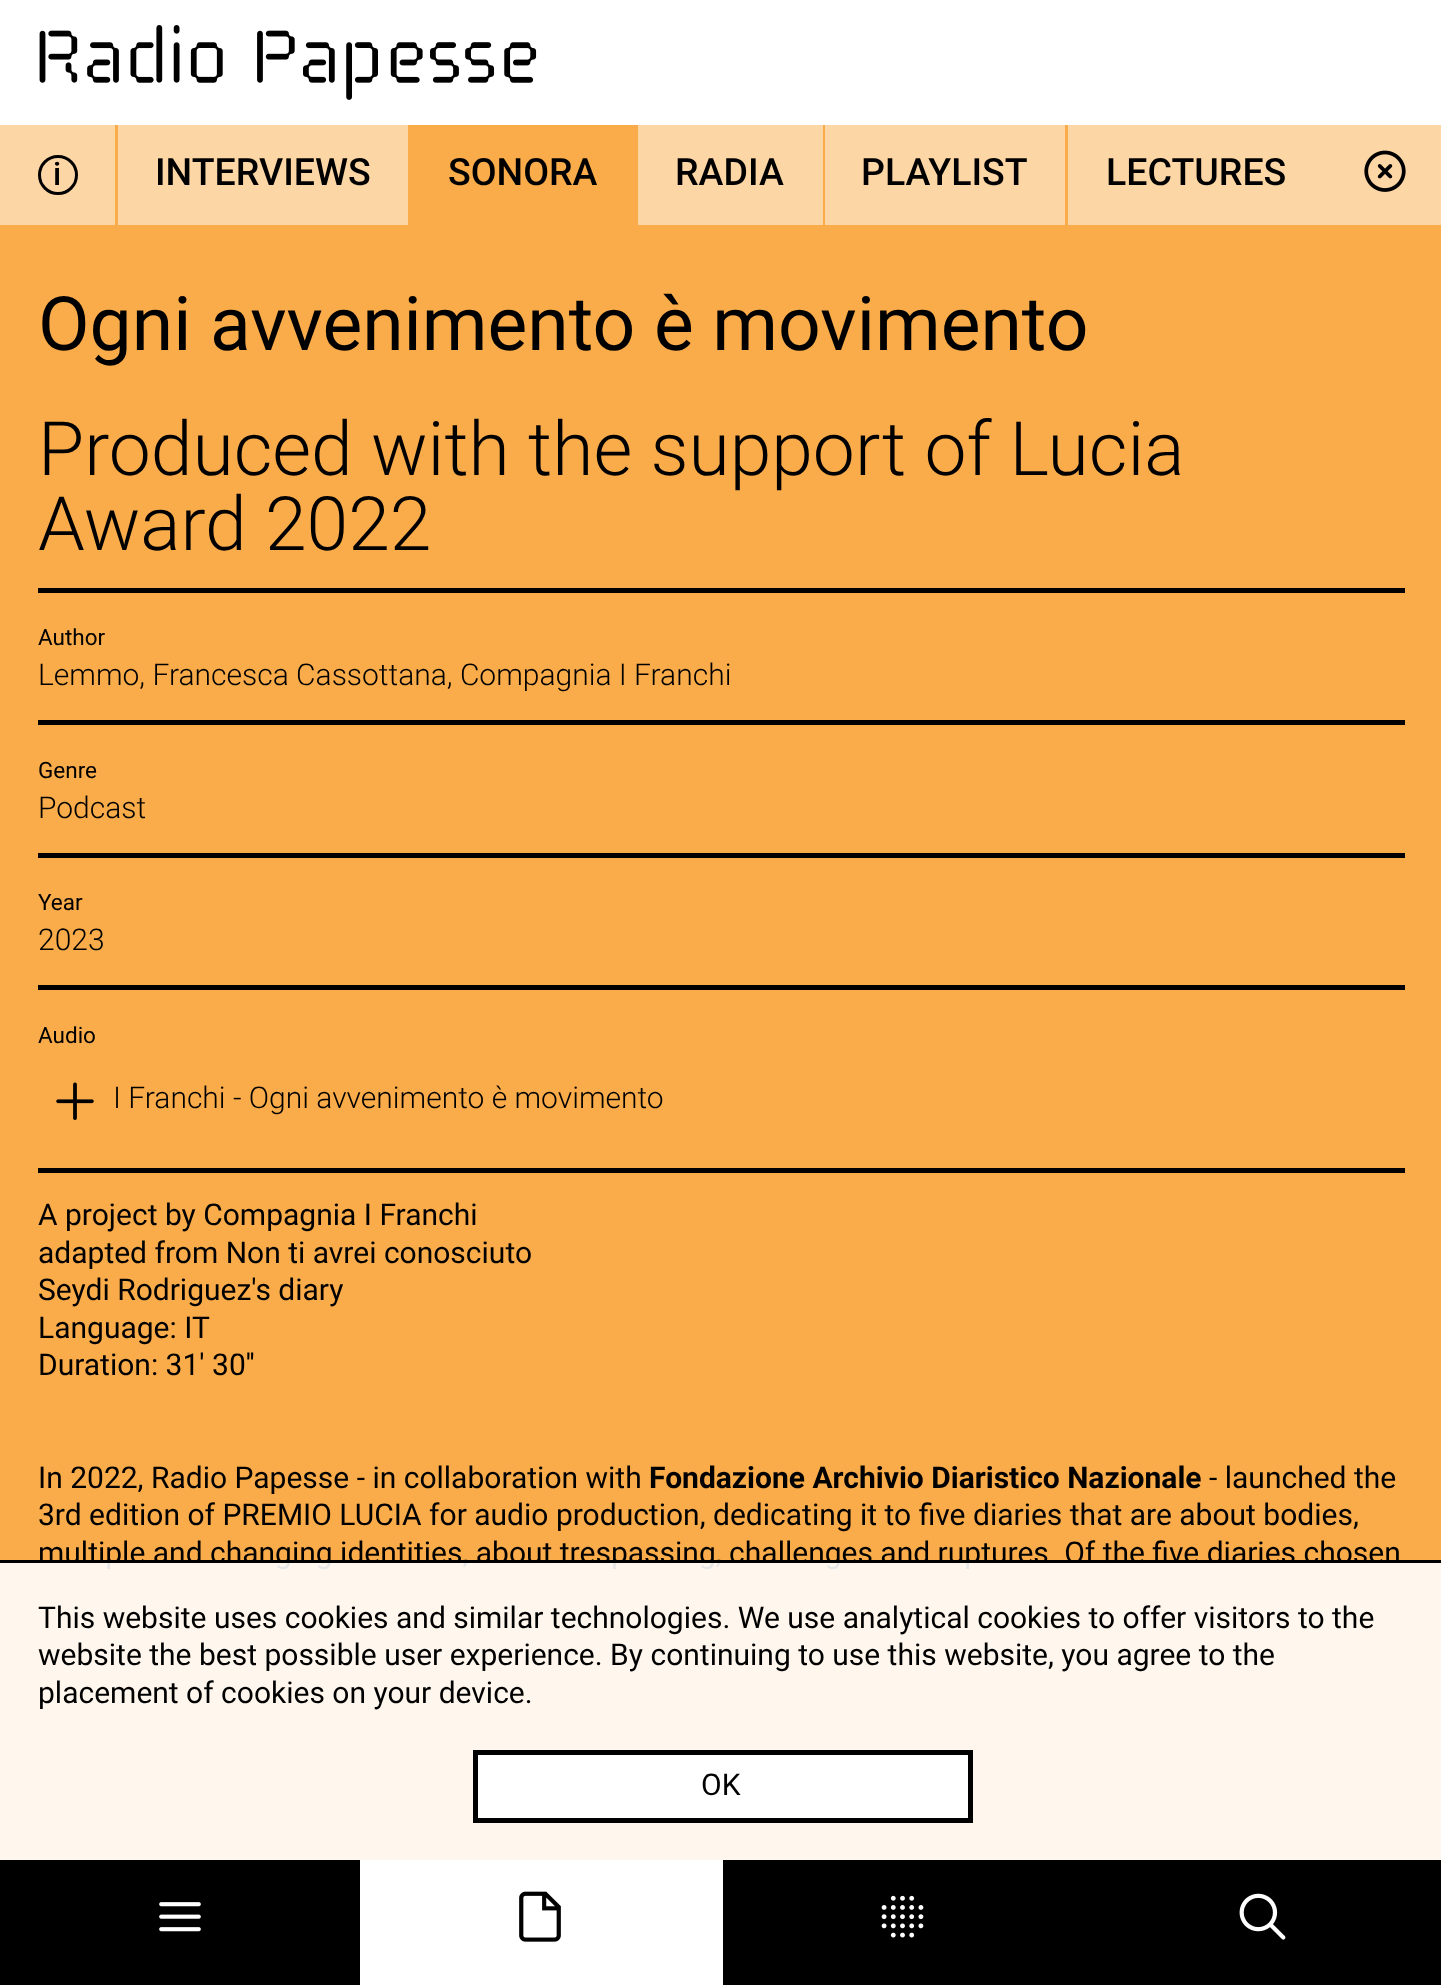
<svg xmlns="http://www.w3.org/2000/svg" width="1441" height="1985">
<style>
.a{font:500 32px Roboto;fill:#000}
.b{font:500 37.5px Roboto;fill:#000}
.c{font:75px Roboto;fill:#000}
.d{font:300 75px Roboto;fill:#000}
.e{font:22.5px Roboto;fill:#000}
.f{font:300 30px Roboto;fill:#000}
.g{font:30px Roboto;fill:#000}
.h{font:bold 30px Roboto;fill:#000}
</style>
<rect width="100%" height="100%" fill="#faac4a"/>
<path fill="#fff" d="M0 0h1441v125H0z"/>
<image href="1.png" x="39" y="25" width="498" height="75"/>
<path fill="#fdd6a5" d="M0 125h1441v100H0z"/>
<circle fill="none" stroke="#000" stroke-width="3" cx="58" cy="175" r="18.5"/>
<path fill="#faac4a" d="M115 125h3v100H115z"/>
<path fill="#faac4a" d="M408 125h230v100H408z"/>
<path fill="#faac4a" d="M823 125h2v100H823z"/>
<path fill="#faac4a" d="M1065 125h3v100H1065z"/>
<image href="2.png" x="1364" y="150" width="42" height="42"/>
<path fill="#000" d="M38 588h1367v5H38z"/>
<path fill="#000" d="M38 720h1367v5H38z"/>
<path fill="#000" d="M38 853h1367v5H38z"/>
<path fill="#000" d="M38 985h1367v5H38z"/>
<path fill="#000" d="M38 1168h1367v5H38z"/>
<image href="3.png" x="56" y="1082" width="38" height="38"/>
<path fill="#000" d="M0 1860h1441v125H0z"/>
<image href="4.png" x="159" y="1902" width="42" height="30"/>
<path fill="#fff" d="M360 1860h363v125H360z"/>
<image href="5.png" x="519" y="1891" width="42" height="51"/>
<image href="6.png" x="881" y="1895" width="43" height="43"/>
<image href="7.png" x="1239" y="1893" width="47" height="47"/>
<path fill="#000" d="M0 1560h1441v3H0z"/>
<text class="a" x="53" y="185">i</text>
<text class="b" x="155" y="185">INTERVIEWS</text>
<text class="b" x="448" y="185">SONORA</text>
<text class="b" x="675" y="185">RADIA</text>
<text class="b" x="861" y="185">PLAYLIST</text>
<text class="b" x="1106" y="185">LECTURES</text>
<text class="c" x="38" y="350">Ogni avvenimento è movimento</text>
<text class="d" x="38" y="475">Produced with the support of Lucia</text>
<text class="d" x="38" y="550">Award 2022</text>
<text class="e" x="38" y="645">Author</text>
<text class="f" x="38" y="685">Lemmo, Francesca Cassottana, Compagnia I Franchi</text>
<text class="e" x="38" y="778">Genre</text>
<text class="f" x="38" y="818">Podcast</text>
<text class="e" x="38" y="910">Year</text>
<text class="f" x="38" y="950">2023</text>
<text class="e" x="38" y="1043">Audio</text>
<text class="f" x="113" y="1108">I Franchi - Ogni avvenimento è movimento</text>
<text class="g" x="38" y="1225">A project by Compagnia I Franchi</text>
<text class="g" x="38" y="1263">adapted from Non ti avrei conosciuto</text>
<text class="g" x="38" y="1300">Seydi Rodriguez's diary</text>
<text class="g" x="38" y="1338">Language: IT</text>
<text class="g" x="38" y="1375">Duration: 31' 30''</text>
<text class="g" x="38" y="1488">In 2022, Radio Papesse - in collaboration with</text>
<text class="h" x="649" y="1488">Fondazione Archivio Diaristico Nazionale</text>
<text class="g" x="1209" y="1488">- launched the</text>
<text class="g" x="38" y="1525">3rd edition of PREMIO LUCIA for audio production, dedicating it to five diaries that are about bodies,</text>
<text class="g" x="38" y="1563">multiple and changing identities, about trespassing, challenges and ruptures. Of the five diaries chosen</text>
<path fill="#ffffffe6" d="M0 1563h1441v297H0z"/>
<text class="g" x="38" y="1628">This website uses cookies and similar technologies. We use analytical cookies to offer visitors to the</text>
<text class="g" x="38" y="1665">website the best possible user experience. By continuing to use this website, you agree to the</text>
<text class="g" x="38" y="1703">placement of cookies on your device.</text>
<path fill="#fff" stroke="#000" stroke-width="5" d="M475.5 1752.5h495v68H475.5z"/>
<text class="g" x="701" y="1795">OK</text>
</svg>
